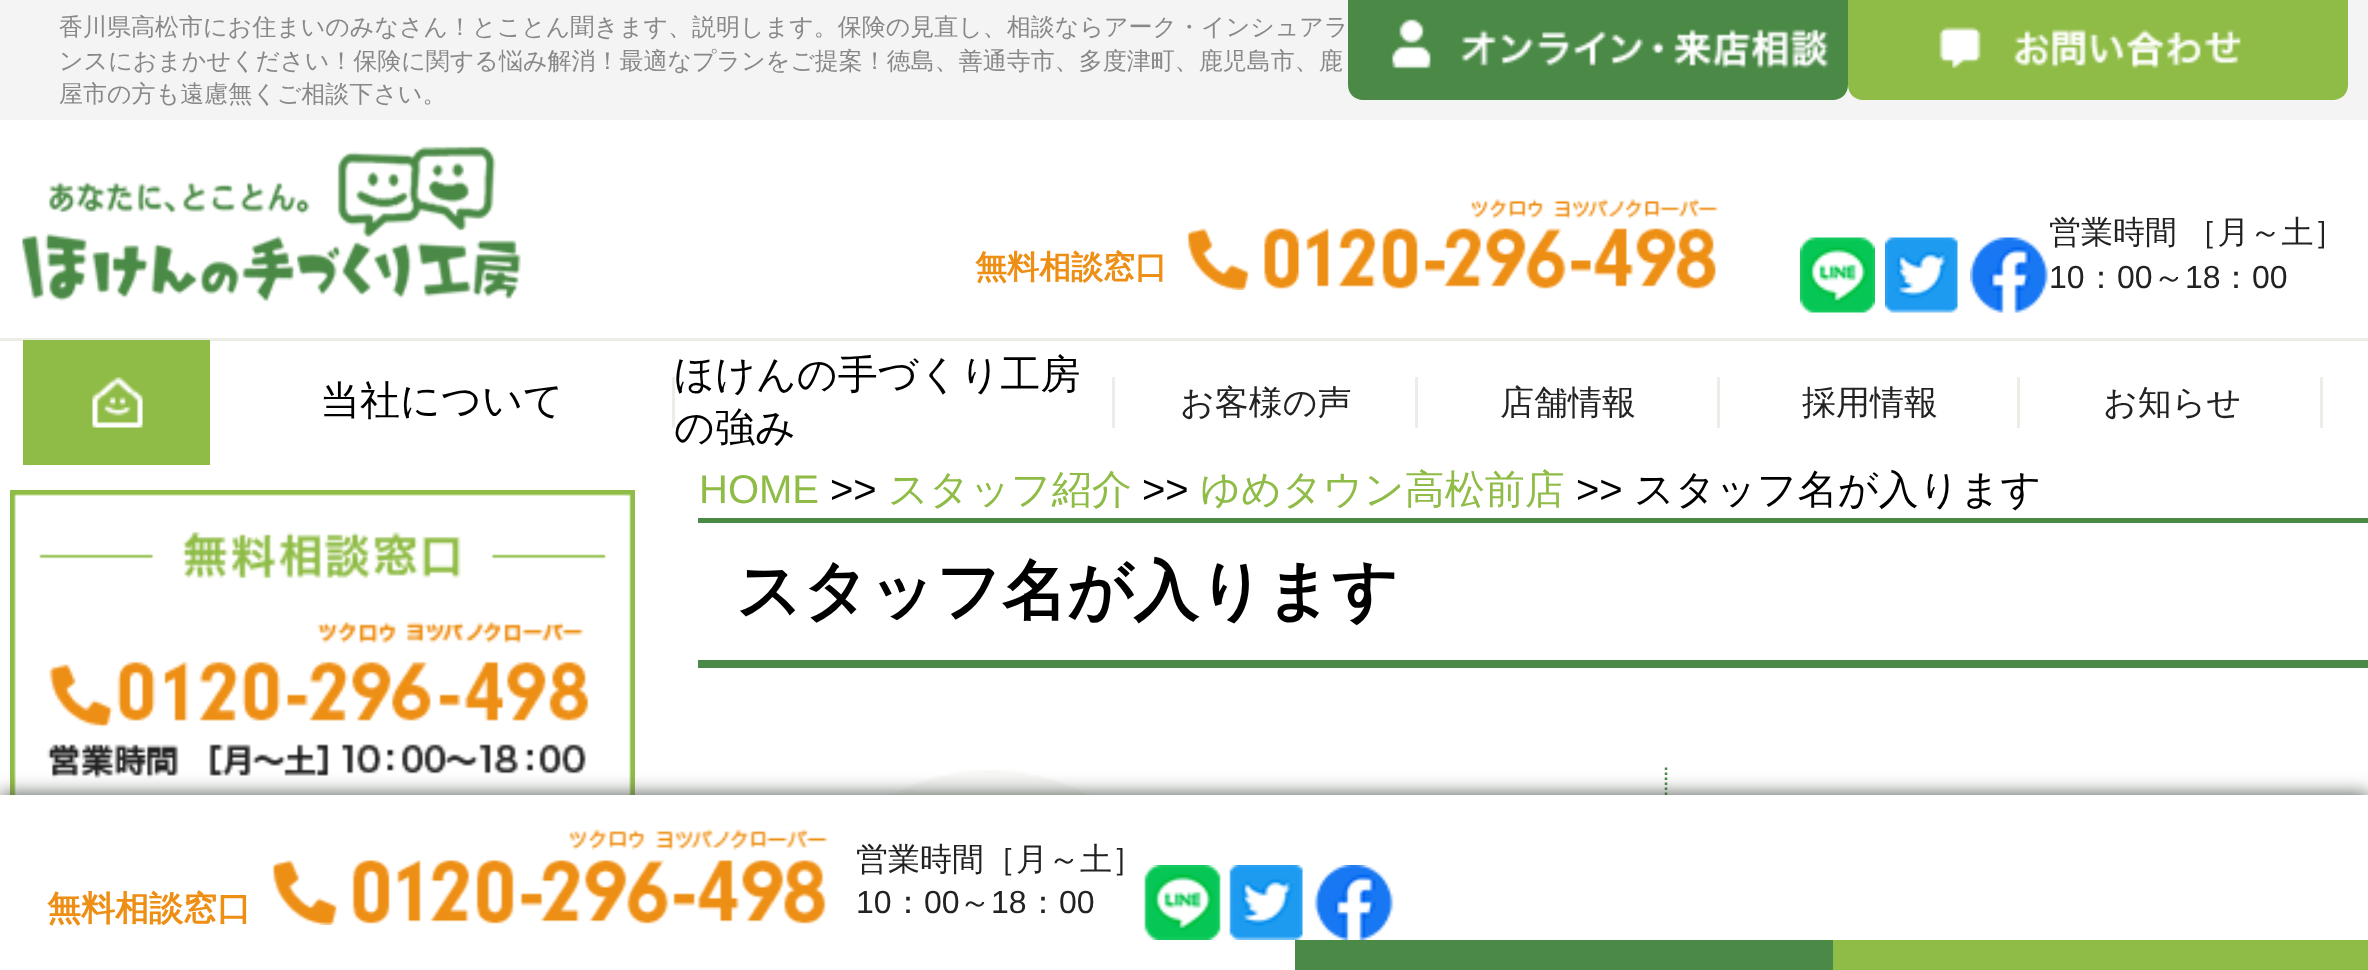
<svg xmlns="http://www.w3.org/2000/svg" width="2368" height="970">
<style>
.a{font:500 24px WenQuanYi Zen Hei;fill:#888}
.b{font:bold 32px WenQuanYi Zen Hei;fill:#ee8f15}
.c{font:500 32px WenQuanYi Zen Hei;fill:#222}
.d{font:32px Liberation Sans;fill:#222}
.e{font:500 40px WenQuanYi Zen Hei;fill:#000}
.f{font:500 34px WenQuanYi Zen Hei;fill:#222}
.g{font:40px Liberation Sans;fill:#8fbc46}
.h{font:40px Liberation Sans;fill:#000}
.i{font:500 40px WenQuanYi Zen Hei;fill:#8fbc46}
.j{font:bold 65px WenQuanYi Zen Hei;fill:#000}
.k{font:bold 34px WenQuanYi Zen Hei;fill:#ee8f15}
</style>
<rect width="100%" height="100%" fill="#fff"/>
<path fill="#f4f4f4" d="M0 0h2368v120H0z"/>
<path fill="#4a8a46" d="M1348 0h500v85c0 8.5-6.5 15-15 15h-470c-8.5 0-15-6.5-15-15z"/>
<image href="1.png" x="1391" y="19" width="438" height="50"/>
<path fill="#8fbc46" d="M1848 0h500v85c0 8.5-6.5 15-15 15h-470c-8.5 0-15-6.5-15-15z"/>
<image href="2.png" x="1939" y="26" width="302" height="43"/>
<image href="3.png" x="22" y="146" width="499" height="156"/>
<image href="4.png" x="1186" y="198" width="532" height="92"/>
<image href="5.png" x="1800" y="237" width="75" height="76"/>
<image href="6.png" x="1885" y="237" width="73" height="76"/>
<image href="7.png" x="1970" y="237" width="79" height="76"/>
<path fill="#edede8" d="M0 338h2368v3H0z"/>
<path fill="#8fbc46" d="M23 340h187v125H23z"/>
<image href="8.png" x="92" y="377" width="51" height="51"/>
<path fill="#edede8" d="M672 377h3v51H672z"/>
<path fill="#edede8" d="M1112 377h3v51H1112z"/>
<path fill="#edede8" d="M1415 377h3v51H1415z"/>
<path fill="#edede8" d="M1717 377h3v51H1717z"/>
<path fill="#edede8" d="M2017 377h3v51H2017z"/>
<path fill="#edede8" d="M2320 377h3v51H2320z"/>
<image href="9.png" x="10" y="490" width="625" height="305"/>
<path fill="#4a8a46" d="M698 518h1670v5H698z"/>
<path fill="#4a8a46" d="M698 660h1670v8H698z"/>
<image href="10.png" x="888" y="770" width="204" height="25"/>
<path fill="none" stroke="#4a8a46" stroke-width="2.5" stroke-dasharray="2.5 2.5" d="M1666 767.5v70"/>
<path fill="#475047" filter="blur(10px)" d="M0 795h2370v175H0z"/>
<path fill="#fff" d="M0 795h2368v175H0z"/>
<image href="11.png" x="271" y="829" width="557" height="96"/>
<image href="12.png" x="1144" y="865" width="77" height="75"/>
<image href="13.png" x="1229" y="865" width="74" height="75"/>
<image href="14.png" x="1314" y="865" width="80" height="75"/>
<path fill="#4a8a46" d="M1295 940h538v30H1295z"/>
<path fill="#8fbc46" d="M1833 940h535v30H1833z"/>
<text class="a" x="59" y="35">香川県高松市にお住まいのみなさん！とことん聞きます、説明します。保険の見直し、相談ならアーク・インシュアラ</text>
<text class="a" x="59" y="69">ンスにおまかせください！保険に関する悩み解消！最適なプランをご提案！徳島、善通寺市、多度津町、鹿児島市、鹿</text>
<text class="a" x="59" y="102">屋市の方も遠慮無くご相談下さい。</text>
<text class="b" x="975" y="278">無料相談窓口</text>
<text class="c" x="2049" y="243" word-spacing="-1">営業時間 ［月～土］</text>
<text class="d" x="2049" y="288">10</text>
<text class="c" x="2085" y="288">：</text>
<text class="d" x="2117" y="288">00</text>
<text class="c" x="2153" y="288">～</text>
<text class="d" x="2185" y="288">18</text>
<text class="c" x="2220" y="288">：</text>
<text class="d" x="2252" y="288">00</text>
<text class="e" x="320" y="414">当社について</text>
<text class="e" x="674" y="388">ほけんの手づくり工房</text>
<text class="e" x="674" y="441">の強み</text>
<text class="f" x="1180" y="414">お客様の声</text>
<text class="f" x="1500" y="414">店舗情報</text>
<text class="f" x="1802" y="414">採用情報</text>
<text class="f" x="2103" y="414">お知らせ</text>
<text class="g" x="699" y="503">HOME</text>
<text class="h" x="830" y="503">&gt;&gt;</text>
<text class="i" x="888" y="503">スタッフ紹介</text>
<text class="h" x="1142" y="503">&gt;&gt;</text>
<text class="i" x="1200" y="503">ゆめタウン高松前店</text>
<text class="h" x="1576" y="503">&gt;&gt;</text>
<text class="e" x="1634" y="503">スタッフ名が入ります</text>
<text class="j" x="736" y="613">スタッフ名が入ります</text>
<text class="k" x="47" y="920">無料相談窓口</text>
<text class="c" x="856" y="870">営業時間［月～土］</text>
<text class="d" x="856" y="913">10</text>
<text class="c" x="892" y="913">：</text>
<text class="d" x="924" y="913">00</text>
<text class="c" x="959" y="913">～</text>
<text class="d" x="991" y="913">18</text>
<text class="c" x="1027" y="913">：</text>
<text class="d" x="1059" y="913">00</text>
</svg>
